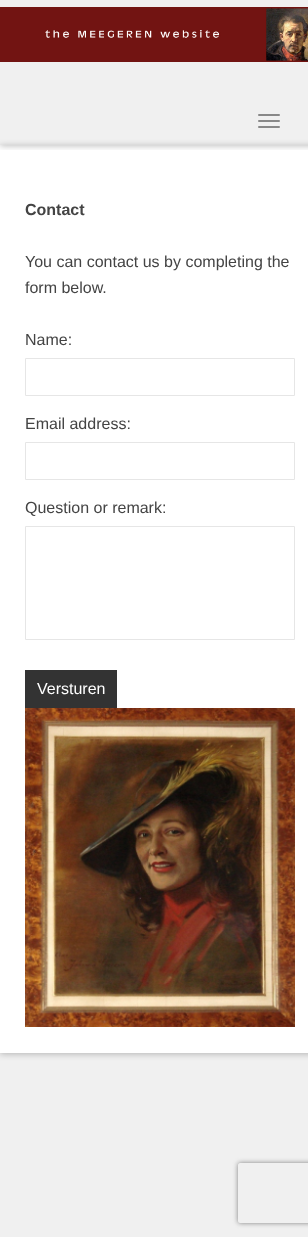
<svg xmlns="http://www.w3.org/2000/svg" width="308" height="1237">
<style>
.a{font:bold 16px Liberation Sans;fill:#444}
.b{font:16px Liberation Sans;fill:#444}
.c{font:16px Liberation Sans;fill:#fff}
</style>
<defs>
<clipPath id="clip1"><path d="M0 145h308v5H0z"/></clipPath>
<clipPath id="clip2"><path d="M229 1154h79v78h-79zm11 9h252c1 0 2 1 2 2v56c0 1-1 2-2 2h-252c-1 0-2-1-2-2v-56c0-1 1-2 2-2z" clip-rule="evenodd"/></clipPath>
</defs>
<rect width="100%" height="100%" fill="#f0f0f0"/>
<path fill="#00000040" filter="blur(3px)" d="M0 146h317v908H0z"/>
<path fill="#fff" d="M0 145h308v908H0z"/>
<g clip-path="url(#clip1)">
<path fill="#00000040" filter="blur(3px)" d="M0 1h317v145H0z"/>
</g>
<image href="1.png" x="0" y="7" width="308" height="55"/>
<rect fill="#888" x="258" y="114" width="22" height="2" rx="1"/>
<rect fill="#888" x="258" y="120" width="22" height="2" rx="1"/>
<rect fill="#888" x="258" y="126" width="22" height="2" rx="1"/>
<path fill="none" stroke="#e6e6e6" d="M25.5 358.5h269v37H25.5z"/>
<path fill="none" stroke="#e6e6e6" d="M25.5 442.5h269v37H25.5z"/>
<path fill="none" stroke="#e6e6e6" d="M25.5 526.5h269v113H25.5z"/>
<path fill="#333" d="M25 670h92v38H25z"/>
<g clip-path="url(#clip2)">
<rect fill="#808080" filter="blur(2.5px)" x="238" y="1163" width="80" height="60" rx="2"/>
</g>
<image href="2.png" x="25" y="708" width="270" height="319"/>
<text class="a" x="25" y="215">Contact</text>
<text class="b" x="25" y="267">You can contact us by completing the</text>
<text class="b" x="25" y="293">form below.</text>
<text class="b" x="25" y="345">Name:</text>
<text class="b" x="25" y="429">Email address:</text>
<text class="b" x="25" y="513">Question or remark:</text>
<text class="c" x="37" y="694">Versturen</text>
</svg>
